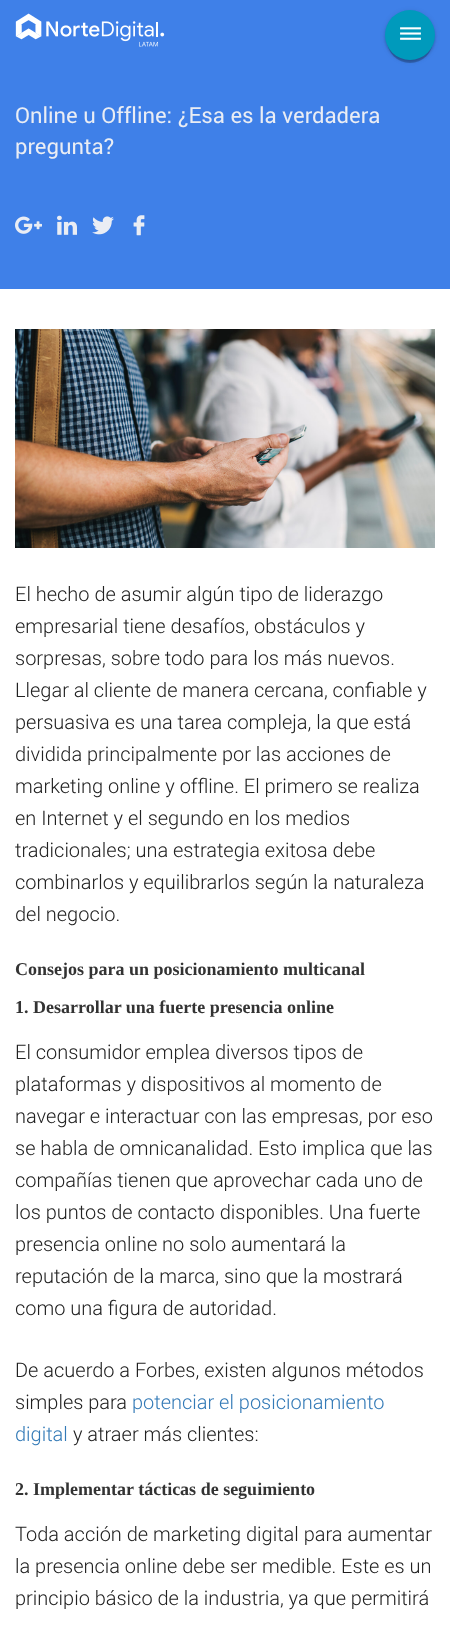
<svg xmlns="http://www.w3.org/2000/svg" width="450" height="1625">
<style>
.a{font:22px Roboto;fill:#eaedf4}
.b{font:300 20px Roboto;fill:#212121}
.c{font:bold 18px Liberation Serif;fill:#333}
.d{font:300 20px Roboto;fill:#337ab7}
</style>
<rect width="100%" height="100%" fill="#fff"/>
<path fill="#3f80e8" d="M0 0h450v289H0z"/>
<image href="1.png" x="15" y="13" width="150" height="34"/>
<rect fill="#0000001f" filter="blur(2.5px)" x="385" y="11" width="50" height="50" rx="25"/>
<rect fill="#00000024" filter="blur(1px)" x="385" y="12" width="50" height="50" rx="25"/>
<rect fill="#00000033" filter="blur(0.5px)" x="387" y="17" width="46" height="46" rx="23"/>
<circle fill="#009abc" cx="410" cy="35" r="25"/>
<image href="2.png" x="400" y="27" width="21" height="13"/>
<image href="3.png" x="15" y="216" width="27" height="18"/>
<image href="4.png" x="57" y="215" width="20" height="20"/>
<image href="5.png" x="92" y="216" width="22" height="19"/>
<image href="6.png" x="133" y="215" width="12" height="21"/>
<image href="7.png" x="15" y="329" width="420" height="219"/>
<text class="a" x="15" y="123">Online u Offline: ¿Esa es la verdadera</text>
<text class="a" x="15" y="154">pregunta?</text>
<text class="b" x="15" y="601">El hecho de asumir algún tipo de liderazgo</text>
<text class="b" x="15" y="633">empresarial tiene desafíos, obstáculos y</text>
<text class="b" x="15" y="665">sorpresas, sobre todo para los más nuevos.</text>
<text class="b" x="15" y="697">Llegar al cliente de manera cercana, confiable y</text>
<text class="b" x="15" y="729">persuasiva es una tarea compleja, la que está</text>
<text class="b" x="15" y="761">dividida principalmente por las acciones de</text>
<text class="b" x="15" y="793">marketing online y offline. El primero se realiza</text>
<text class="b" x="15" y="825">en Internet y el segundo en los medios</text>
<text class="b" x="15" y="857">tradicionales; una estrategia exitosa debe</text>
<text class="b" x="15" y="889">combinarlos y equilibrarlos según la naturaleza</text>
<text class="b" x="15" y="921">del negocio.</text>
<text class="c" x="15" y="975">Consejos para un posicionamiento multicanal</text>
<text class="c" x="15" y="1013">1. Desarrollar una fuerte presencia online</text>
<text class="b" x="15" y="1059">El consumidor emplea diversos tipos de</text>
<text class="b" x="15" y="1091">plataformas y dispositivos al momento de</text>
<text class="b" x="15" y="1123">navegar e interactuar con las empresas, por eso</text>
<text class="b" x="15" y="1155">se habla de omnicanalidad. Esto implica que las</text>
<text class="b" x="15" y="1187">compañías tienen que aprovechar cada uno de</text>
<text class="b" x="15" y="1219">los puntos de contacto disponibles. Una fuerte</text>
<text class="b" x="15" y="1251">presencia online no solo aumentará la</text>
<text class="b" x="15" y="1283">reputación de la marca, sino que la mostrará</text>
<text class="b" x="15" y="1315">como una figura de autoridad.</text>
<text class="b" x="15" y="1377">De acuerdo a Forbes, existen algunos métodos</text>
<text class="b" x="15" y="1409">simples para</text>
<text class="d" x="132" y="1409">potenciar el posicionamiento</text>
<text class="d" x="15" y="1441">digital</text>
<text class="b" x="73" y="1441">y atraer más clientes:</text>
<text class="c" x="15" y="1495">2. Implementar tácticas de seguimiento</text>
<text class="b" x="15" y="1541">Toda acción de marketing digital para aumentar</text>
<text class="b" x="15" y="1573">la presencia online debe ser medible. Este es un</text>
<text class="b" x="15" y="1605">principio básico de la industria, ya que permitirá</text>
</svg>
